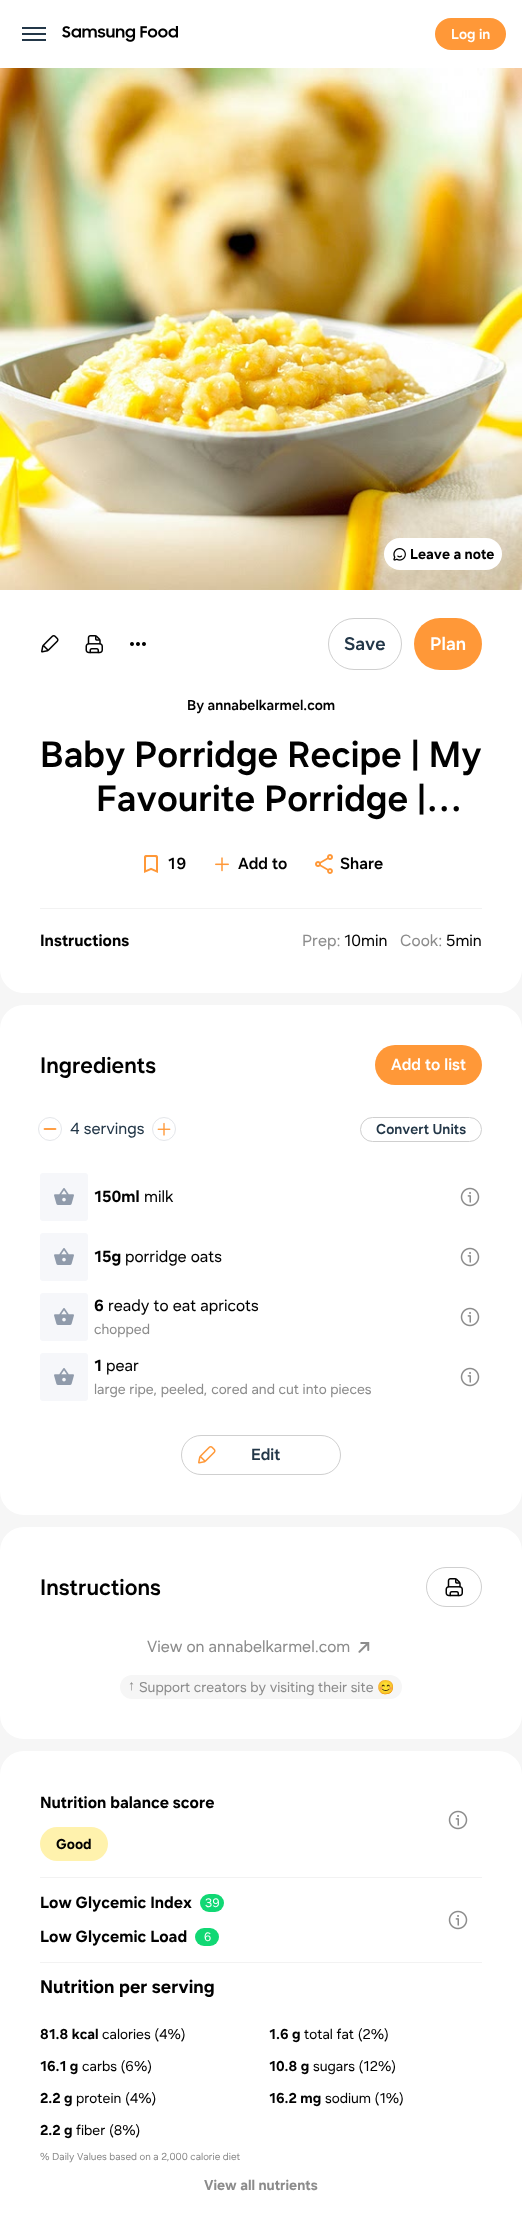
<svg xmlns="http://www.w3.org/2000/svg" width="522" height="2214">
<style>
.a{font:600 14px 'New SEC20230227';fill:#fff}
.b{font:bold 14px 'New SEC20230227';fill:#010101}
.c{font:600 18px 'New SEC20230227';fill:#233748}
.d{font:600 18px 'New SEC20230227';fill:#fff}
.e{font:600 14px 'New SEC20230227';fill:#010101}
.f{font:600 36px 'New SEC20230227';fill:#010101}
.g{font:600 16px 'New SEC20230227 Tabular';fill:#010101}
.h{font:600 16px 'New SEC20230227';fill:#010101}
.i{font:bold 16px 'New SEC20230227';fill:#010101}
.j{font:16px 'New SEC20230227';fill:#8c8c8c}
.k{font:16px 'New SEC20230227';fill:#010101}
.l{font:600 22px 'New SEC20230227';fill:#010101}
.m{font:600 16px 'New SEC20230227';fill:#fff}
.n{font:16px 'New SEC20230227';fill:#233748}
.o{font:600 14px 'New SEC20230227';fill:#233748}
.p{font:14px 'New SEC20230227';fill:#8c8c8c}
.q{font:600 16px 'New SEC20230227';fill:#233748}
.r{font:14px Liberation Sans;fill:#8c8c8c}
.s{font:14px Noto Color Emoji;fill:#8c8c8c}
.t{font:12px 'New SEC20230227';fill:#fff}
.u{font:bold 18px 'New SEC20230227';fill:#010101}
.v{font:14px 'New SEC20230227';fill:#010101}
.w{font:10px 'New SEC20230227';fill:#8c8c8c}
.x{font:bold 14px 'New SEC20230227';fill:#8c8c8c}
</style>
<rect width="100%" height="100%" fill="#f6f6f6"/>
<path fill="#fff" d="M0 0h522v68H0z"/>
<path fill="#233748" d="M22 27h24v2H22z"/>
<path fill="#233748" d="M22 33h24v2H22z"/>
<path fill="#233748" d="M22 39h24v2H22z"/>
<image href="1.png" x="62" y="26" width="116" height="16"/>
<rect fill="#ff9838" x="435" y="18" width="71" height="32" rx="16"/>
<image href="2.png" x="0" y="68" width="522" height="522"/>
<rect fill="#fff" x="384" y="538" width="118" height="32" rx="16"/>
<image href="3.png" x="393" y="548" width="13" height="13"/>
<path fill="#fff" d="M0 590h522v379c0 13.5-10.5 24-24 24h-474c-13.5 0-24-10.5-24-24z"/>
<image href="4.png" x="41" y="635" width="18" height="18"/>
<image href="5.png" x="85" y="635" width="18" height="19"/>
<image href="6.png" x="130" y="642" width="16" height="4"/>
<rect fill="none" stroke="#cfcfcf" x="328.5" y="618.5" width="73" height="51" rx="25.5"/>
<rect fill="#ff9838" x="414" y="618" width="68" height="52" rx="26"/>
<image href="7.png" x="144" y="855" width="14" height="18"/>
<image href="8.png" x="215" y="857" width="14" height="15"/>
<image href="9.png" x="315" y="854" width="18" height="20"/>
<path fill="#f2f2f2" d="M40 908h442v1H40z"/>
<rect fill="#fff" y="1005" width="522" height="510" rx="24"/>
<rect fill="#ff9838" x="375" y="1045" width="107" height="40" rx="20"/>
<circle fill="none" stroke="#e4e6ea" cx="50" cy="1129" r="11.5"/>
<image href="10.png" x="43" y="1128" width="14" height="2"/>
<circle fill="none" stroke="#e4e6ea" cx="164" cy="1129" r="11.5"/>
<image href="11.png" x="157" y="1122" width="14" height="14"/>
<rect fill="none" stroke="#cfcfcf" x="360.5" y="1117.5" width="121" height="24" rx="12"/>
<rect fill="#f6f7fa" x="40" y="1173" width="48" height="48" rx="3"/>
<image href="12.png" x="54" y="1188" width="20" height="17"/>
<image href="13.png" x="460" y="1187" width="20" height="20"/>
<rect fill="#f6f7fa" x="40" y="1233" width="48" height="48" rx="3"/>
<image href="12.png" x="54" y="1248" width="20" height="17"/>
<image href="13.png" x="460" y="1247" width="20" height="20"/>
<rect fill="#f6f7fa" x="40" y="1293" width="48" height="48" rx="3"/>
<image href="12.png" x="54" y="1308" width="20" height="17"/>
<image href="13.png" x="460" y="1307" width="20" height="20"/>
<rect fill="#f6f7fa" x="40" y="1353" width="48" height="48" rx="3"/>
<image href="12.png" x="54" y="1368" width="20" height="17"/>
<image href="13.png" x="460" y="1367" width="20" height="20"/>
<rect fill="none" stroke="#cfcfcf" x="181.5" y="1435.5" width="159" height="39" rx="19.5"/>
<image href="14.png" x="198" y="1446" width="18" height="18"/>
<rect fill="#fff" y="1527" width="522" height="212" rx="24"/>
<rect fill="none" stroke="#cfcfcf" x="426.5" y="1567.5" width="55" height="39" rx="19.5"/>
<image href="5.png" x="445" y="1578" width="18" height="19"/>
<image href="15.png" x="358" y="1642" width="12" height="11"/>
<rect fill="#f6f6f6" x="120" y="1675" width="282" height="24" rx="12"/>
<rect fill="#fff" y="1751" width="522" height="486" rx="24"/>
<rect fill="#fff2ad" x="40" y="1827" width="68" height="34" rx="17"/>
<image href="13.png" x="448" y="1810" width="20" height="20"/>
<path fill="#f2f2f2" d="M40 1877h442v1H40z"/>
<path fill="#f2f2f2" d="M40 1962h442v1H40z"/>
<rect fill="#11d874" x="200" y="1894" width="24" height="18" rx="9"/>
<rect fill="#11d874" x="195" y="1928" width="24" height="18" rx="9"/>
<image href="13.png" x="448" y="1910" width="20" height="20"/>
<text class="a" x="451" y="39">Log in</text>
<text class="b" x="410" y="559">Leave a note</text>
<text class="c" x="344" y="650">Save</text>
<text class="d" x="430" y="650">Plan</text>
<text class="e" x="187" y="710">By annabelkarmel.com</text>
<text class="f" x="40" y="767">Baby Porridge Recipe | My</text>
<text class="f" x="96" y="811">Favourite Porridge |…</text>
<text class="g" x="167" y="869">19</text>
<text class="h" x="238" y="869">Add to</text>
<text class="h" x="340" y="869">Share</text>
<text class="i" x="40" y="946">Instructions</text>
<text class="j" x="302" y="946">Prep:</text>
<text class="k" x="344" y="946">10min</text>
<text class="j" x="400" y="946">Cook:</text>
<text class="k" x="446" y="946">5min</text>
<text class="l" x="40" y="1073">Ingredients</text>
<text class="m" x="391" y="1070">Add to list</text>
<text class="n" x="70" y="1134">4 servings</text>
<text class="o" x="376" y="1134">Convert Units</text>
<text class="i" x="94" y="1202">150ml</text>
<text class="k" x="144" y="1202">milk</text>
<text class="i" x="94" y="1262">15g</text>
<text class="k" x="125" y="1262">porridge oats</text>
<text class="i" x="94" y="1311">6</text>
<text class="k" x="108" y="1311">ready to eat apricots</text>
<text class="p" x="94" y="1334">chopped</text>
<text class="i" x="94" y="1371">1</text>
<text class="k" x="106" y="1371">pear</text>
<text class="p" x="94" y="1394">large ripe, peeled, cored and cut into pieces</text>
<text class="q" x="251" y="1460">Edit</text>
<text class="l" x="40" y="1595">Instructions</text>
<text class="j" x="147" y="1652">View on annabelkarmel.com</text>
<text class="r" x="128" y="1690">↑</text>
<text class="p" x="139" y="1692">Support creators by visiting their site</text>
<text class="s" x="377" y="1692">😊</text>
<text class="i" x="40" y="1808">Nutrition balance score</text>
<text class="b" x="56" y="1849">Good</text>
<text class="i" x="40" y="1908">Low Glycemic Index</text>
<text class="t" x="205" y="1907">39</text>
<text class="i" x="40" y="1942">Low Glycemic Load</text>
<text class="t" x="204" y="1941">6</text>
<text class="u" x="40" y="1993">Nutrition per serving</text>
<text class="b" x="40" y="2039">81.8 kcal</text>
<text class="v" x="102" y="2039">calories (4%)</text>
<text class="b" x="269" y="2039">1.6 g</text>
<text class="v" x="304" y="2039">total fat (2%)</text>
<text class="b" x="40" y="2071">16.1 g</text>
<text class="v" x="82" y="2071">carbs (6%)</text>
<text class="b" x="269" y="2071">10.8 g</text>
<text class="v" x="313" y="2071">sugars (12%)</text>
<text class="b" x="40" y="2103">2.2 g</text>
<text class="v" x="76" y="2103">protein (4%)</text>
<text class="b" x="269" y="2103">16.2 mg</text>
<text class="v" x="325" y="2103">sodium (1%)</text>
<text class="b" x="40" y="2135">2.2 g</text>
<text class="v" x="76" y="2135">fiber (8%)</text>
<text class="w" x="40" y="2160">% Daily Values based on a 2,000 calorie diet</text>
<text class="x" x="204" y="2190">View all nutrients</text>
</svg>
